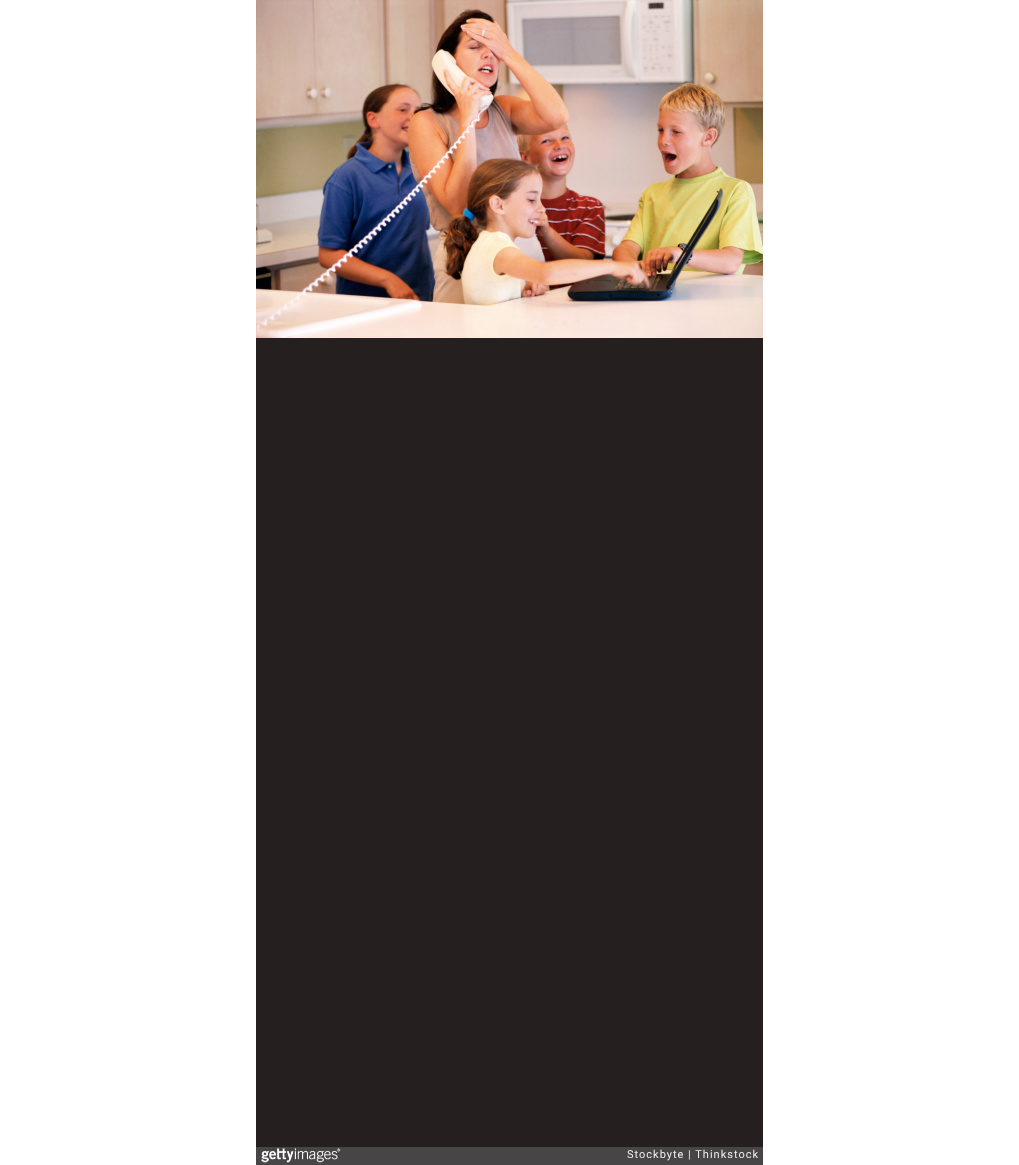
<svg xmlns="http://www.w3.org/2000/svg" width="1019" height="1165">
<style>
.a{font:11px Roboto;letter-spacing:1px;fill:#eee}
</style>
<rect width="100%" height="100%" fill="#fff"/>
<path fill="#251f20" d="M256 338h507v809H256z"/>
<image href="1.png" x="256" y="0" width="507" height="338"/>
<path fill="#474545" d="M256 1147h507v18H256z"/>
<image href="2.png" x="261" y="1148" width="80" height="15"/>
<text class="a" x="627" y="1158">Stockbyte | Thinkstock</text>
</svg>
